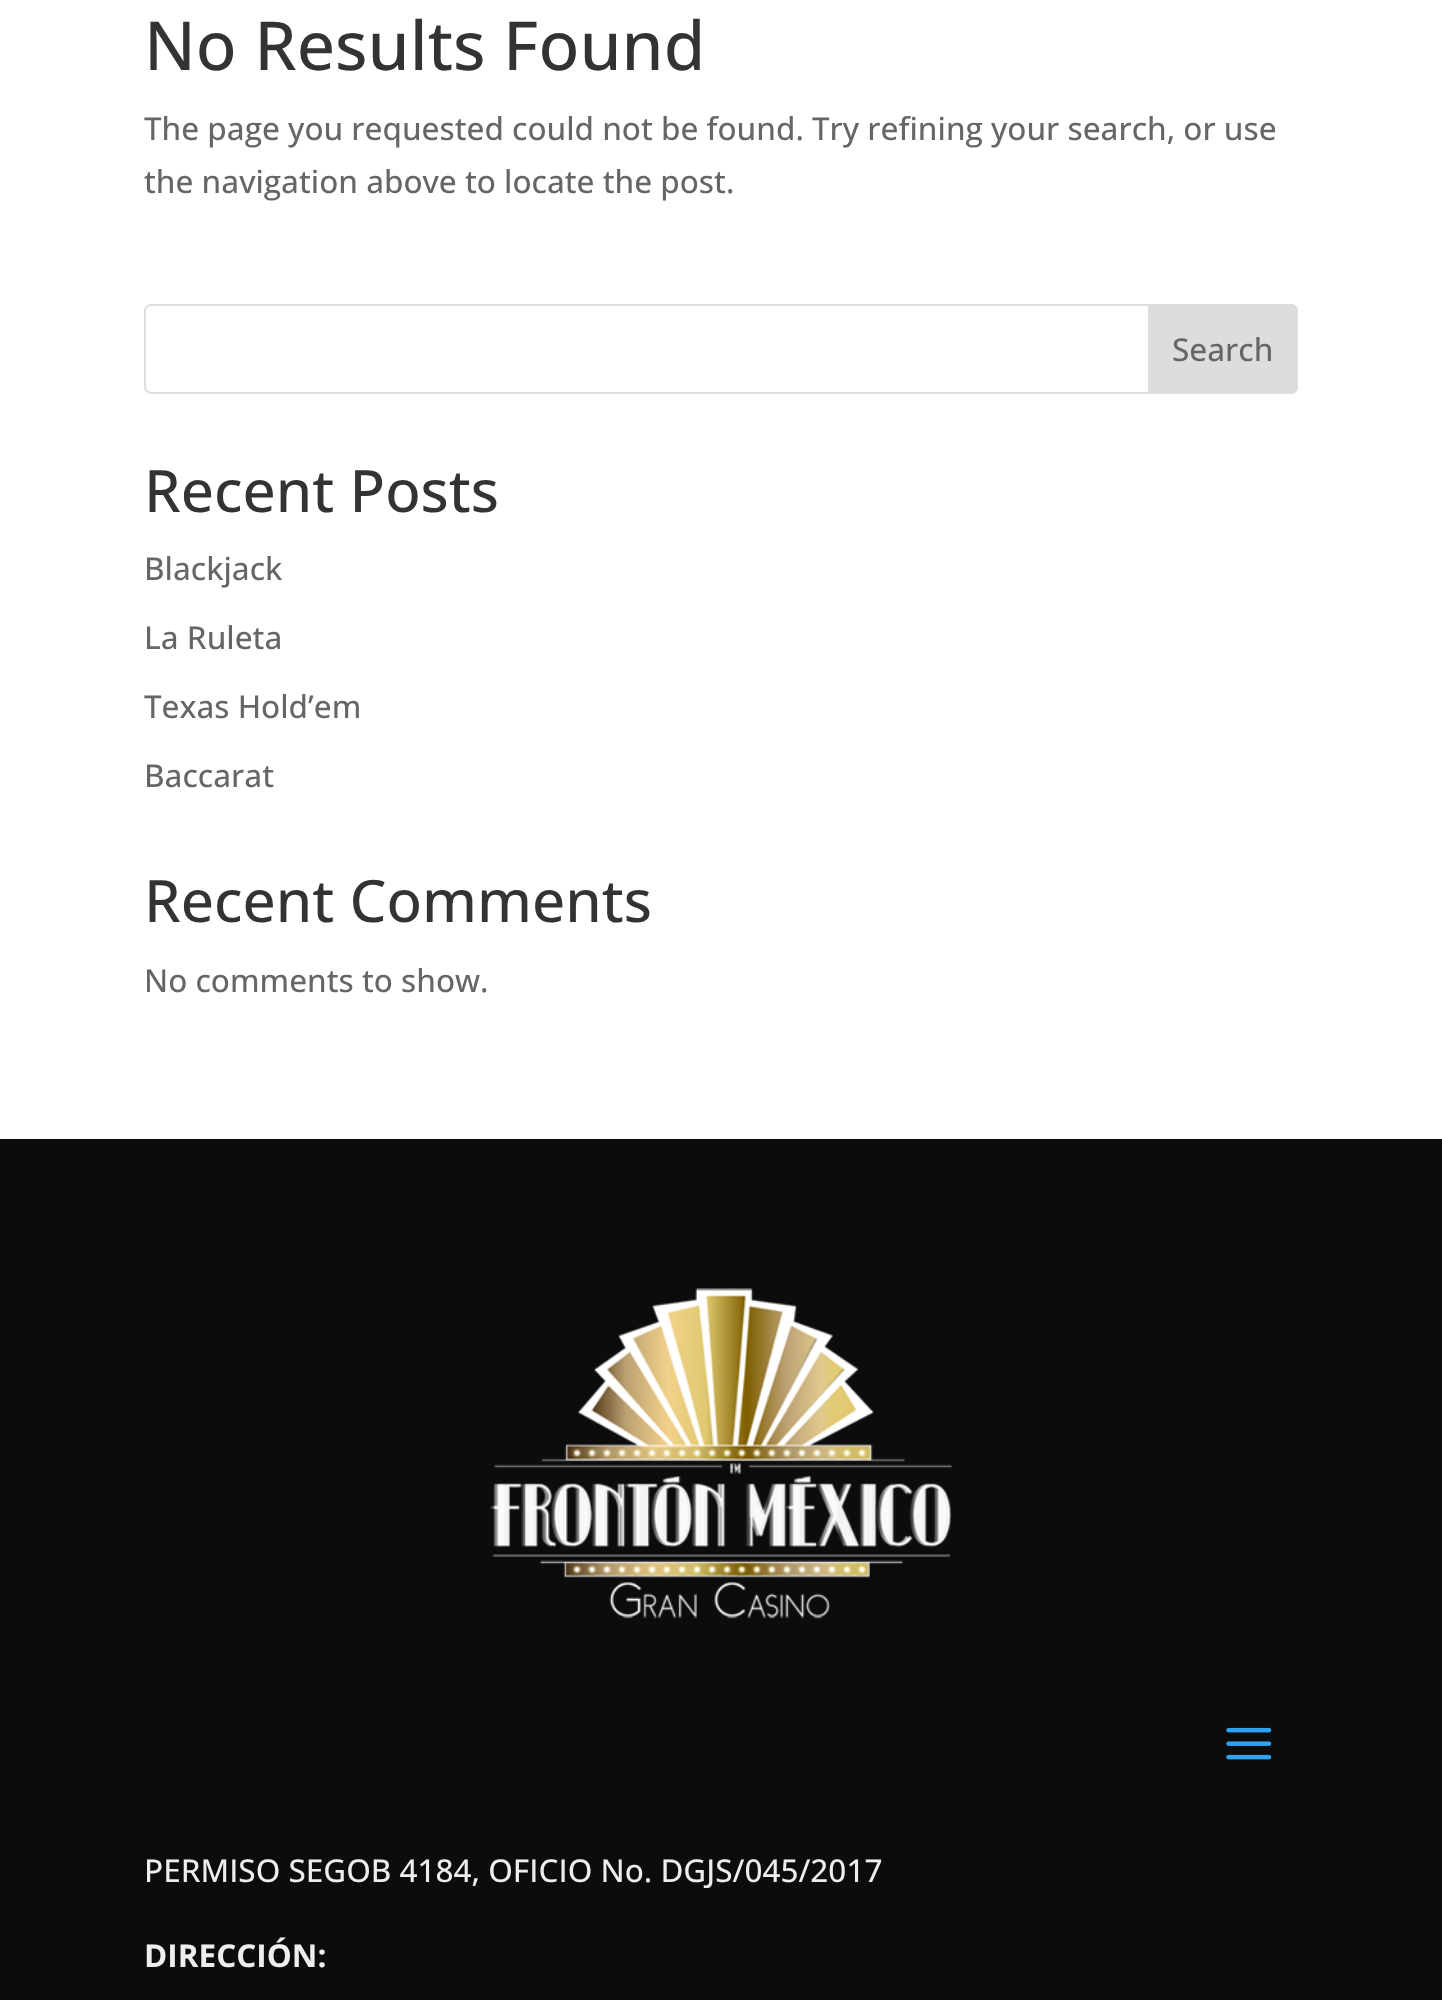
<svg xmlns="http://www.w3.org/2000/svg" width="1442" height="2000">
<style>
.a{font:500 67.5px Open Sans;fill:#333}
.b{font:500 31.5px Open Sans;fill:#666}
.c{font:500 58.5px Open Sans;fill:#333}
.d{font:500 31.5px Open Sans;fill:#eee}
.e{font:bold 31.5px Open Sans;fill:#eee}
</style>
<rect width="100%" height="100%" fill="#fff"/>
<rect fill="none" stroke="#ddd" stroke-width="2" x="145" y="305" width="1152" height="88" rx="6"/>
<path fill="#ddd" stroke="#ddd" stroke-width="2" d="M1149 305h142c3.5 0 6 2.5 6 6v76c0 3.5-2.5 6-6 6h-142z"/>
<path fill="#0c0c0c" d="M0 1139h1442v861H0z"/>
<image href="1.png" x="490" y="1288" width="462" height="331"/>
<image href="2.png" x="1226" y="1727" width="46" height="33"/>
<text class="a" x="144" y="70">No Results Found</text>
<text class="b" x="144" y="140">The page you requested could not be found. Try refining your search, or use</text>
<text class="b" x="144" y="193">the navigation above to locate the post.</text>
<text class="b" x="1172" y="361">Search</text>
<text class="c" x="144" y="512">Recent Posts</text>
<text class="b" x="144" y="580">Blackjack</text>
<text class="b" x="144" y="649">La Ruleta</text>
<text class="b" x="144" y="718">Texas Hold’em</text>
<text class="b" x="144" y="787">Baccarat</text>
<text class="c" x="144" y="922">Recent Comments</text>
<text class="b" x="144" y="992">No comments to show.</text>
<text class="d" x="144" y="1882">PERMISO SEGOB 4184, OFICIO No. DGJS/045/2017</text>
<text class="e" x="144" y="1967">DIRECCIÓN:</text>
</svg>
